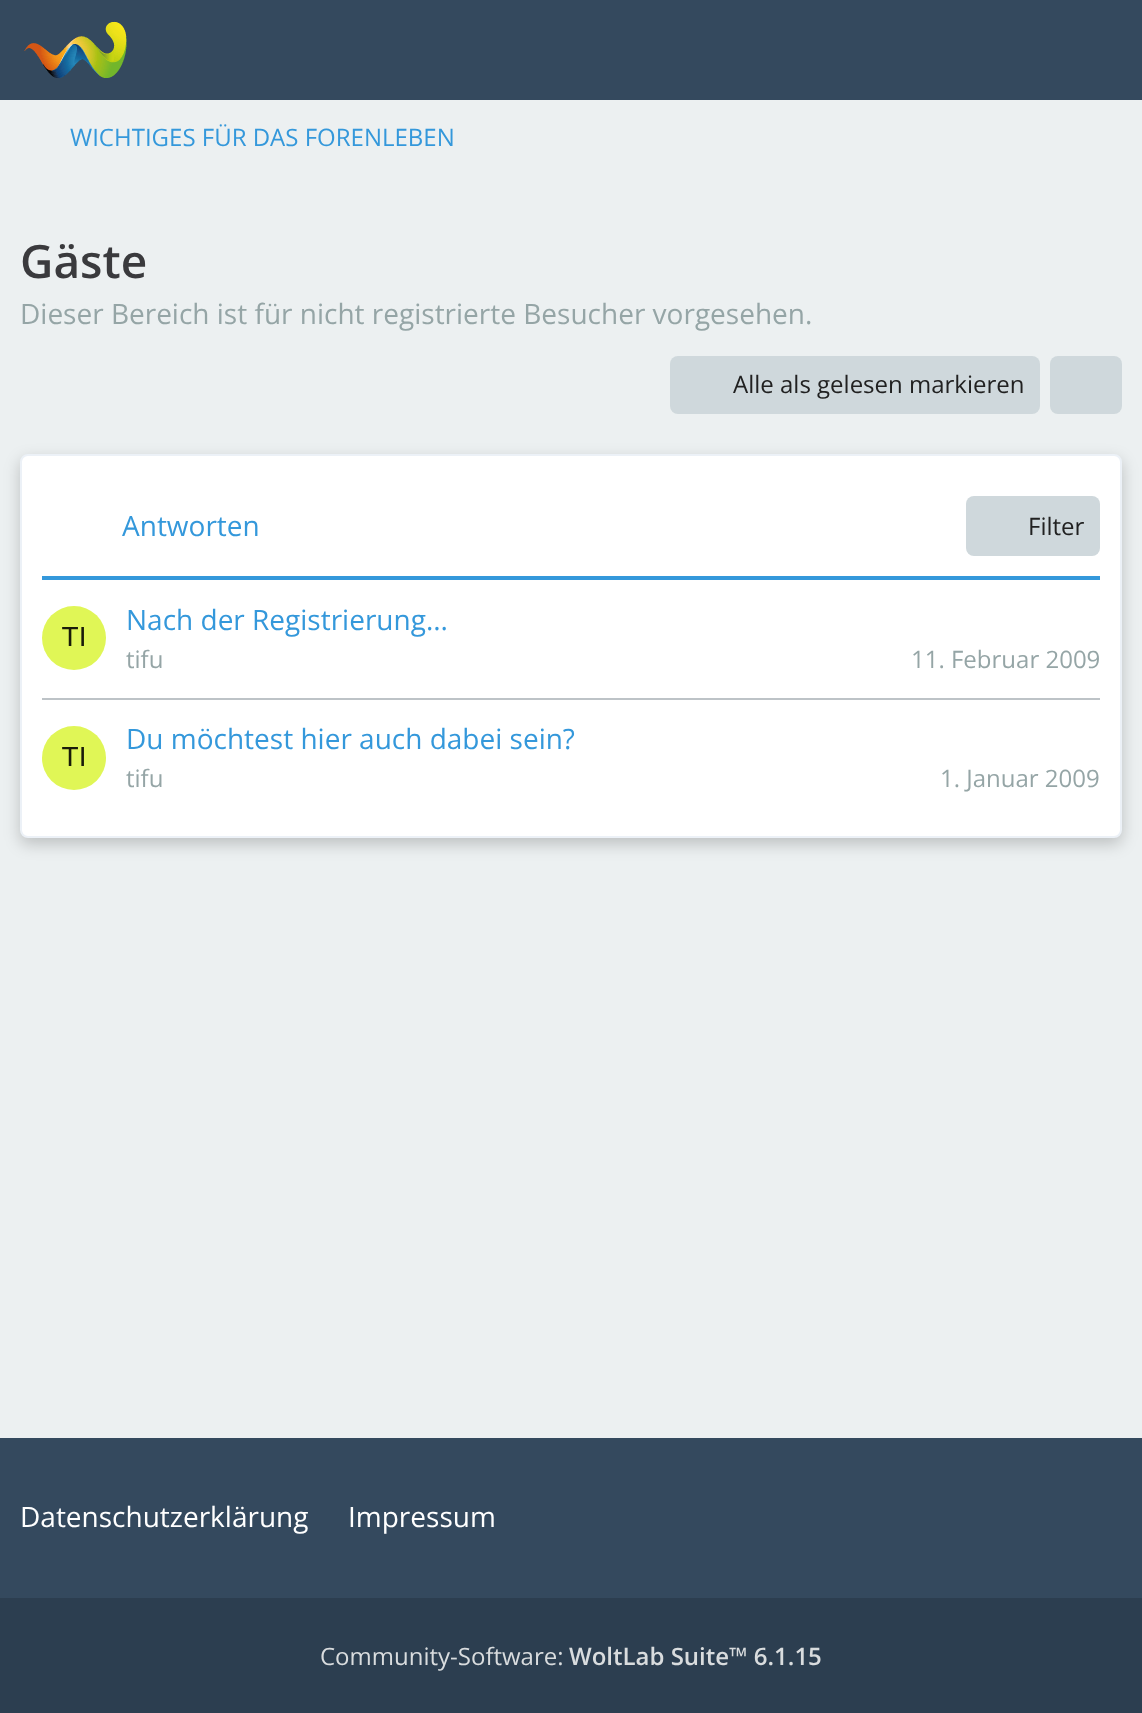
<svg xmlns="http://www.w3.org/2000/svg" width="1142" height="1713">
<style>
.a{font:24px Open Sans;fill:#3498db}
.b{font:600 46px Open Sans;fill:#3a3a3d}
.c{font:28px Open Sans;fill:#95a5a6}
.d{font:24px Open Sans;fill:#212121}
.e{font:28px Open Sans;fill:#3498db}
.f{font:24px Open Sans;fill:#95a5a6}
.g{font:28px Open Sans;fill:#fff}
.h{font:24px Open Sans;fill:#d9dcde}
.i{font:600 24px Open Sans;fill:#d9dcde}
</style>
<rect width="100%" height="100%" fill="#ecf0f1"/>
<path fill="#34495e" d="M0 0h1142v100H0z"/>
<image href="1.png" x="24" y="21" width="103" height="57"/>
<rect fill="#cfd8dc" x="670" y="356" width="370" height="58" rx="8"/>
<rect fill="#cfd8dc" x="1050" y="356" width="72" height="58" rx="8"/>
<rect fill="#00000033" filter="blur(8px)" x="20" y="460" width="1102" height="384" rx="8"/>
<rect fill="#fff" stroke="#ecf1f7" stroke-width="2" x="21" y="455" width="1100" height="382" rx="7"/>
<path fill="#3498db" d="M42 576h1058v4H42z"/>
<rect fill="#cfd8dc" x="966" y="496" width="134" height="60" rx="8"/>
<image href="2.png" x="42" y="606" width="64" height="64"/>
<path fill="#bdc3c7" d="M42 698h1058v2H42z"/>
<image href="3.png" x="42" y="726" width="64" height="64"/>
<path fill="#34495e" d="M0 1438h1142v160H0z"/>
<path fill="#2c3e50" d="M0 1598h1142v115H0z"/>
<text class="a" x="70" y="146">WICHTIGES FÜR DAS FORENLEBEN</text>
<text class="b" x="20" y="278">Gäste</text>
<text class="c" x="20" y="324">Dieser Bereich ist für nicht registrierte Besucher vorgesehen.</text>
<text class="d" x="733" y="393">Alle als gelesen markieren</text>
<text class="e" x="122" y="536">Antworten</text>
<text class="d" x="1028" y="535">Filter</text>
<text class="e" x="126" y="630">Nach der Registrierung...</text>
<text class="f" x="126" y="668">tifu</text>
<text class="f" x="911" y="668">11. Februar 2009</text>
<text class="e" x="126" y="749">Du möchtest hier auch dabei sein?</text>
<text class="f" x="126" y="787">tifu</text>
<text class="f" x="940" y="787">1. Januar 2009</text>
<text class="g" x="20" y="1527">Datenschutzerklärung</text>
<text class="g" x="348" y="1527">Impressum</text>
<text class="h" x="320" y="1665">Community-Software:</text>
<text class="i" x="569" y="1665">WoltLab Suite™ 6.1.15</text>
</svg>
